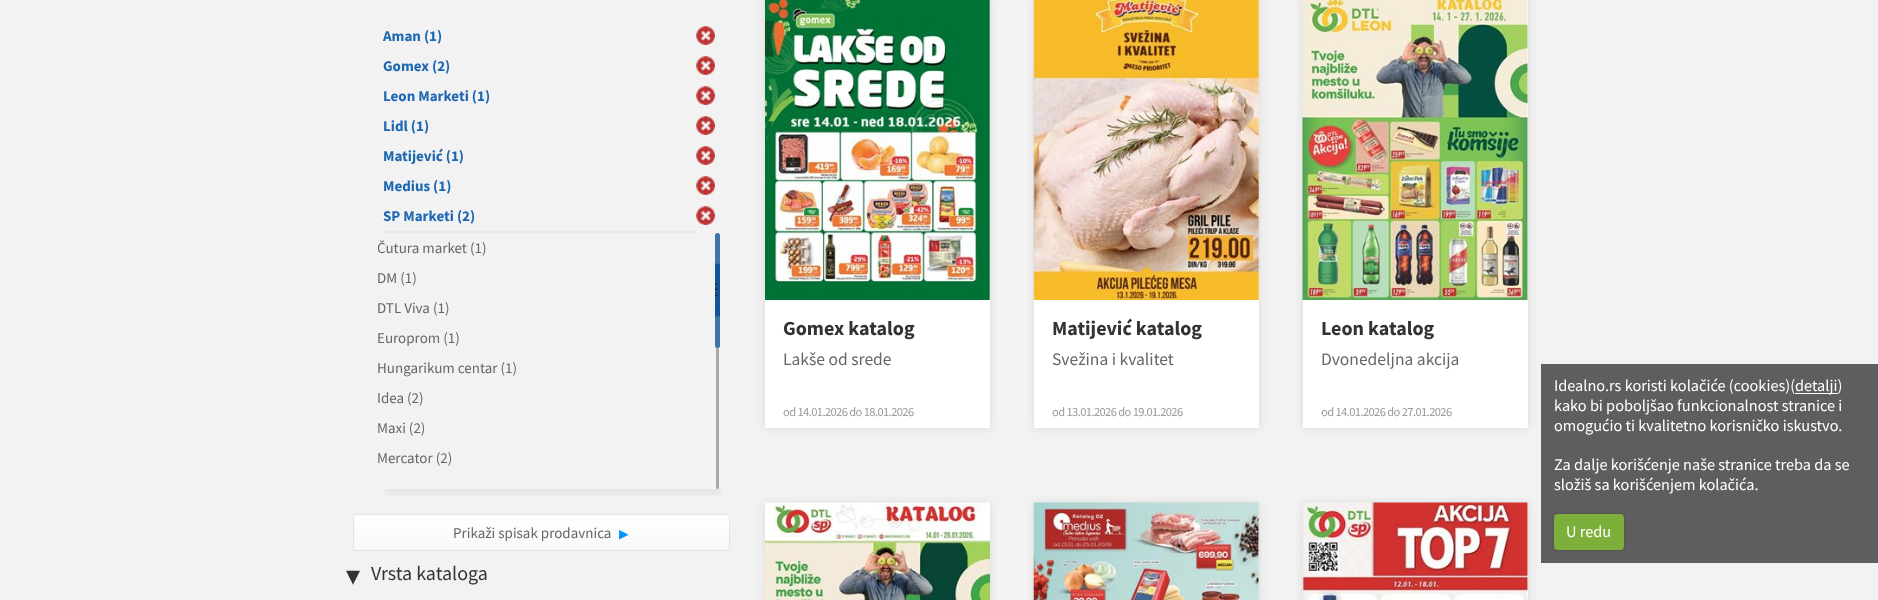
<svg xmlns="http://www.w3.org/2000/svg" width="1878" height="600">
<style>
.a{font:bold 15px Source Sans Pro;fill:#1e67b3}
.b{font:15px Source Sans Pro;fill:#666}
.c{font:12.5px DejaVu Sans;fill:#0096ff}
.d{font:28px DejaVu Sans;fill:#333}
.e{font:20px Source Sans Pro;fill:#333}
.f{font:bold 20px Source Sans Pro;fill:#333}
.g{font:17.5px Source Sans Pro;fill:#666}
.h{font:12.5px Source Sans Pro;letter-spacing:-0.6px;fill:#999}
.i{font:16.25px Source Sans Pro;fill:#fff}
</style>
<defs>
<clipPath id="clip1"><path d="M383 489h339v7H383z"/></clipPath>
<clipPath id="clip2"><rect x="353" y="514" width="377" height="37" rx="2.5"/></clipPath>
<linearGradient id="g1" gradientUnits="userSpaceOnUse" x1="541" y1="515" x2="541" y2="550"><stop offset="0" stop-color="#fff"/><stop offset="1" stop-color="#f8f8f8"/></linearGradient>
<clipPath id="clip3"><path d="M378 233h350v256H378z"/></clipPath>
</defs>
<rect width="100%" height="100%" fill="#f2f2f2"/>
<path fill="none" stroke="#d2d2d3" stroke-width="1.2" stroke-dasharray="1.25 1.25" d="M384 232h312"/>
<image href="1.png" x="696" y="26" width="19" height="19"/>
<image href="1.png" x="696" y="56" width="19" height="19"/>
<image href="1.png" x="696" y="86" width="19" height="19"/>
<image href="1.png" x="696" y="116" width="19" height="19"/>
<image href="1.png" x="696" y="146" width="19" height="19"/>
<image href="1.png" x="696" y="176" width="19" height="19"/>
<image href="1.png" x="696" y="206" width="19" height="19"/>
<g clip-path="url(#clip1)">
<path fill="#0000000d" filter="blur(3px)" d="M384 251h337v244H384z"/>
</g>
<rect fill="#0000004d" x="716" y="233" width="3" height="256" rx="1.5"/>
<rect fill="#4074aa" x="715" y="233" width="5" height="115" rx="2.5"/>
<image href="2.png" x="715" y="263" width="5" height="54"/>
<g clip-path="url(#clip2)">
<path fill="url(#g1)" d="M353 515h377v35H353z"/>
</g>
<rect fill="none" stroke="#e3e3e3" x="353.5" y="514.5" width="376" height="36" rx="2"/>
<path fill="#0000001a" filter="blur(4.5px)" d="M765 -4h225v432H765z"/>
<path fill="#fff" d="M765 300h225v128H765z"/>
<image href="3.png" x="765" y="0" width="225" height="300"/>
<path fill="#0000001a" filter="blur(4.5px)" d="M1034 -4h225v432H1034z"/>
<path fill="#fff" d="M1034 0h225v428H1034z"/>
<image href="4.png" x="1033" y="0" width="226" height="300"/>
<path fill="#0000001a" filter="blur(4.5px)" d="M1303 -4h225v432H1303z"/>
<path fill="#fff" d="M1303 0h225v428H1303z"/>
<image href="5.png" x="1302" y="0" width="226" height="300"/>
<path fill="#0000001a" filter="blur(4.5px)" d="M765 503h225v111H765z"/>
<image href="6.png" x="765" y="502" width="225" height="98"/>
<path fill="#0000001a" filter="blur(4.5px)" d="M1034 503h225v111H1034z"/>
<image href="7.png" x="1033" y="502" width="226" height="98"/>
<path fill="#0000001a" filter="blur(4.5px)" d="M1303 503h225v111H1303z"/>
<path fill="#fff" d="M1527 503h1v97H1527z"/>
<image href="8.png" x="1302" y="502" width="226" height="98"/>
<path fill="#5e5e5e" d="M1541 364h337v199H1541z"/>
<path fill="#fff" d="M1795 393h43v1H1795z"/>
<rect fill="#00000040" filter="blur(1px)" x="1554" y="514" width="70" height="36" rx="4"/>
<rect fill="#7daf3b" x="1554" y="514" width="70" height="36" rx="4"/>
<text class="a" x="383" y="41">Aman (1)</text>
<text class="a" x="383" y="71">Gomex (2)</text>
<text class="a" x="383" y="101">Leon Marketi (1)</text>
<text class="a" x="383" y="131">Lidl (1)</text>
<text class="a" x="383" y="161">Matijević (1)</text>
<text class="a" x="383" y="191">Medius (1)</text>
<text class="a" x="383" y="221">SP Marketi (2)</text>
<g clip-path="url(#clip3)">
<text class="b" x="377" y="253">Čutura market</text>
</g>
<text class="b" x="470" y="253">(1)</text>
<text class="b" x="377" y="283">DM (1)</text>
<text class="b" x="377" y="313">DTL Viva (1)</text>
<text class="b" x="377" y="343">Europrom (1)</text>
<text class="b" x="377" y="373">Hungarikum centar (1)</text>
<text class="b" x="377" y="403">Idea (2)</text>
<text class="b" x="377" y="433">Maxi (2)</text>
<text class="b" x="377" y="463">Mercator (2)</text>
<text class="b" x="453" y="538">Prikaži spisak prodavnica</text>
<text class="c" x="619" y="538">▶</text>
<text class="d" x="346" y="585">▾</text>
<text class="e" x="371" y="580">Vrsta kataloga</text>
<text class="f" x="783" y="335">Gomex katalog</text>
<text class="g" x="783" y="365">Lakše od srede</text>
<text class="h" x="783" y="416">od 14.01.2026 do 18.01.2026</text>
<text class="f" x="1052" y="335">Matijević katalog</text>
<text class="g" x="1052" y="365">Svežina i kvalitet</text>
<text class="h" x="1052" y="416">od 13.01.2026 do 19.01.2026</text>
<text class="f" x="1321" y="335">Leon katalog</text>
<text class="g" x="1321" y="365">Dvonedeljna akcija</text>
<text class="h" x="1321" y="416">od 14.01.2026 do 27.01.2026</text>
<text class="i" x="1554" y="391">Idealno.rs koristi kolačiće (cookies)(</text>
<text class="i" x="1795" y="391">detalji)</text>
<text class="i" x="1554" y="411">kako bi poboljšao funkcionalnost stranice i</text>
<text class="i" x="1554" y="431">omogućio ti kvalitetno korisničko iskustvo.</text>
<text class="i" x="1554" y="470">Za dalje korišćenje naše stranice treba da se</text>
<text class="i" x="1554" y="490">složiš sa korišćenjem kolačića.</text>
<text class="i" x="1566" y="537">U redu</text>
</svg>
